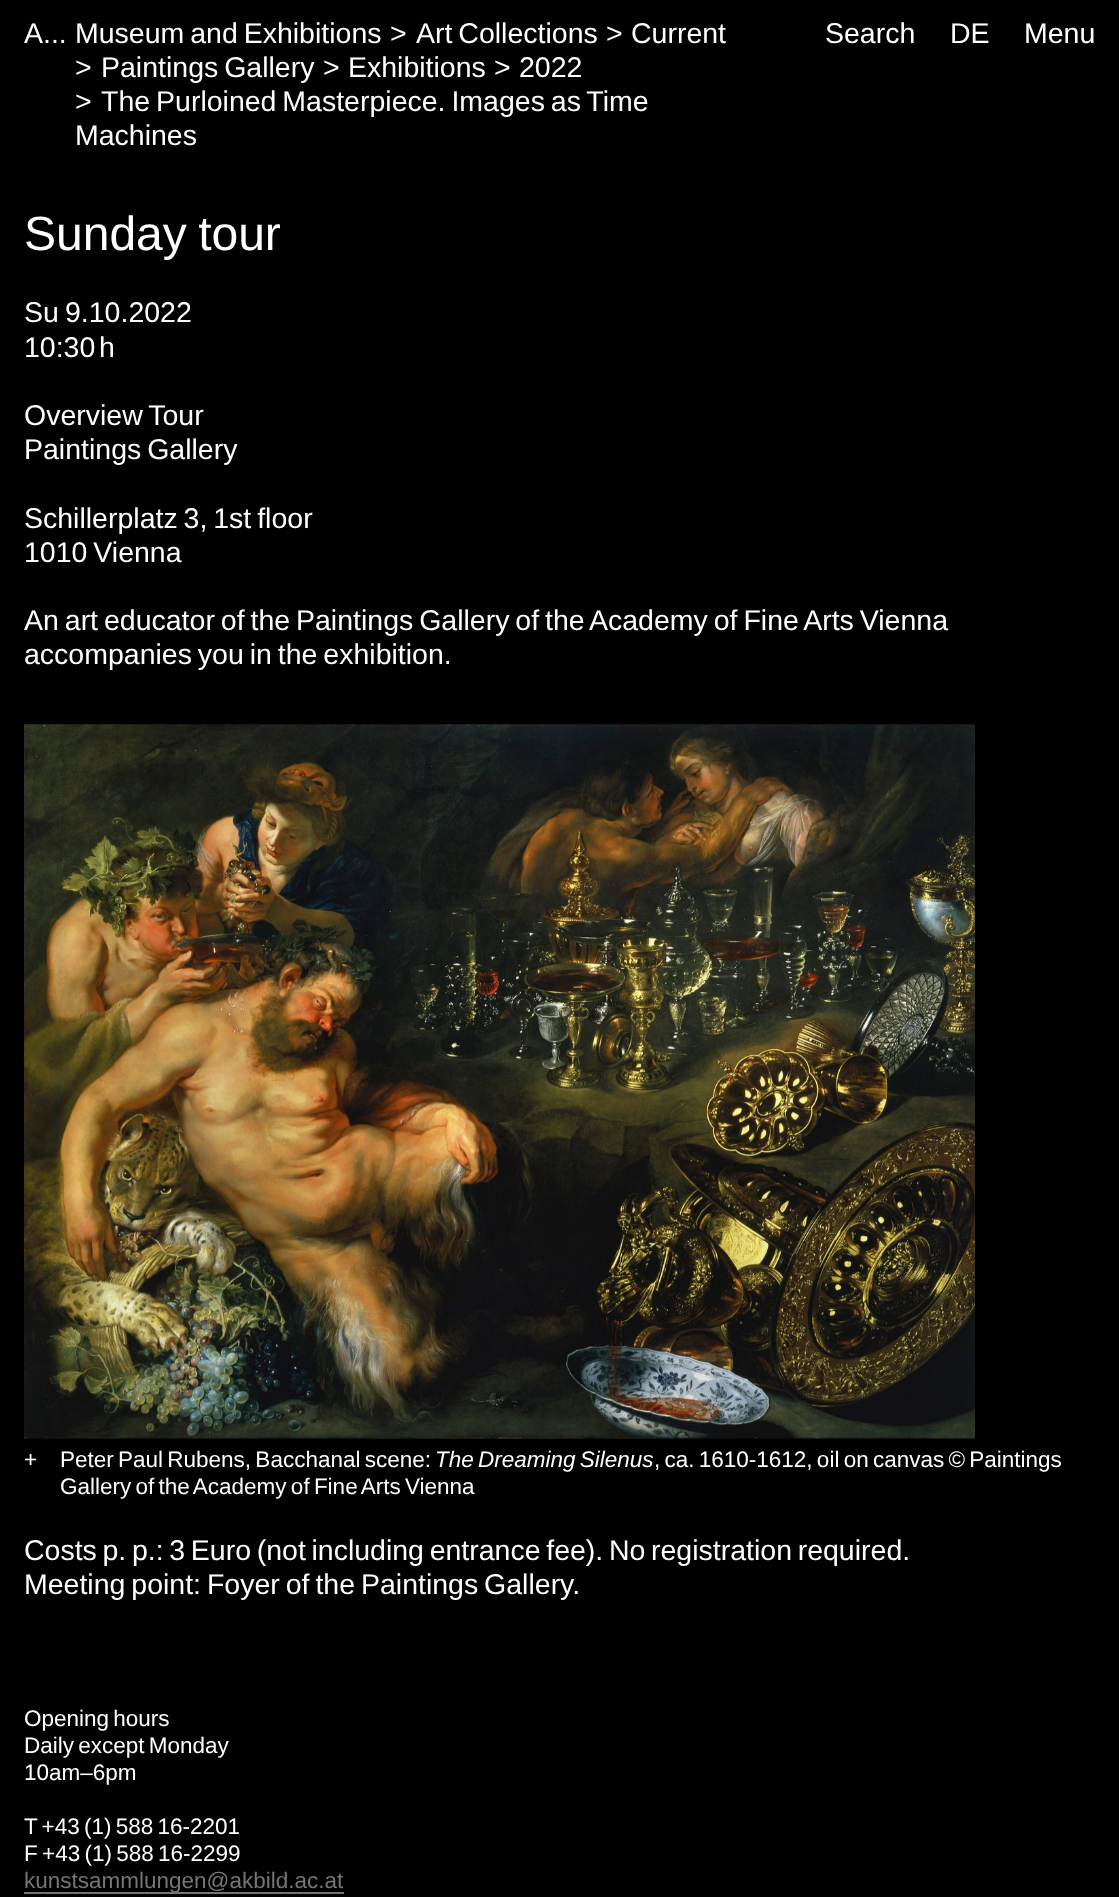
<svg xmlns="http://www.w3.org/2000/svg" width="1119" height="1897">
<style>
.a{font:28.5px Liberation Sans;fill:#fff}
.b{font:48px Liberation Sans;fill:#fff}
.c{font:22.5px Liberation Sans;fill:#fff}
.d{font:italic 22.5px Liberation Sans;fill:#fff}
.e{font:22.5px Liberation Sans;fill:#757575}
</style>
<rect width="100%" height="100%" fill="#000"/>
<image href="1.png" x="24" y="724" width="951" height="715"/>
<path fill="#757575" d="M24 1892h320v2H24z"/>
<text class="a" x="24" y="43">A...</text>
<text class="a" x="75" y="43" word-spacing="-2">Museum and Exhibitions</text>
<text class="a" x="390" y="43">&gt;</text>
<text class="a" x="416" y="43" word-spacing="-2">Art Collections</text>
<text class="a" x="606" y="43">&gt;</text>
<text class="a" x="631" y="43">Current</text>
<text class="a" x="75" y="77">&gt;</text>
<text class="a" x="101" y="77" word-spacing="-2">Paintings Gallery</text>
<text class="a" x="323" y="77">&gt;</text>
<text class="a" x="348" y="77">Exhibitions</text>
<text class="a" x="494" y="77">&gt;</text>
<text class="a" x="519" y="77">2022</text>
<text class="a" x="75" y="111">&gt;</text>
<text class="a" x="101" y="111" word-spacing="-2">The Purloined Masterpiece. Images as Time</text>
<text class="a" x="75" y="145">Machines</text>
<text class="a" x="825" y="43">Search</text>
<text class="a" x="950" y="43">DE</text>
<text class="a" x="1024" y="43">Menu</text>
<text class="b" x="24" y="250" word-spacing="-2">Sunday tour</text>
<text class="a" x="24" y="322">Su</text>
<text class="a" x="65" y="322">9.10.2022</text>
<text class="a" x="24" y="357">10:30</text>
<text class="a" x="99" y="357">h</text>
<text class="a" x="24" y="425" word-spacing="-2">Overview Tour</text>
<text class="a" x="24" y="459" word-spacing="-2">Paintings Gallery</text>
<text class="a" x="24" y="528" word-spacing="-2">Schillerplatz 3, 1st floor</text>
<text class="a" x="24" y="562" word-spacing="-2">1010 Vienna</text>
<text class="a" x="24" y="630" word-spacing="-2">An art educator of the Paintings Gallery of the Academy of Fine Arts Vienna</text>
<text class="a" x="24" y="664" word-spacing="-2">accompanies you in the exhibition.</text>
<text class="c" x="24" y="1467">+</text>
<text class="c" x="60" y="1467" word-spacing="-2">Peter Paul Rubens, Bacchanal scene:</text>
<text class="d" x="435" y="1467" word-spacing="-2">The Dreaming Silenus</text>
<text class="c" x="654" y="1467" word-spacing="-2">, ca. 1610-1612, oil on canvas © Paintings</text>
<text class="c" x="60" y="1494" word-spacing="-2">Gallery of the Academy of Fine Arts Vienna</text>
<text class="a" x="24" y="1560" word-spacing="-2.25">Costs p. p.: 3 Euro (not including entrance fee). No registration required.</text>
<text class="a" x="24" y="1594" word-spacing="-2">Meeting point: Foyer of the Paintings Gallery.</text>
<text class="c" x="24" y="1726" word-spacing="-2">Opening hours</text>
<text class="c" x="24" y="1753" word-spacing="-2">Daily except Monday</text>
<text class="c" x="24" y="1780">10am–6pm</text>
<text class="c" x="24" y="1834" word-spacing="-2">T +43 (1) 588 16-2201</text>
<text class="c" x="24" y="1861" word-spacing="-2">F +43 (1) 588 16-2299</text>
<text class="e" x="24" y="1888">kunstsammlungen@akbild.ac.at</text>
</svg>
